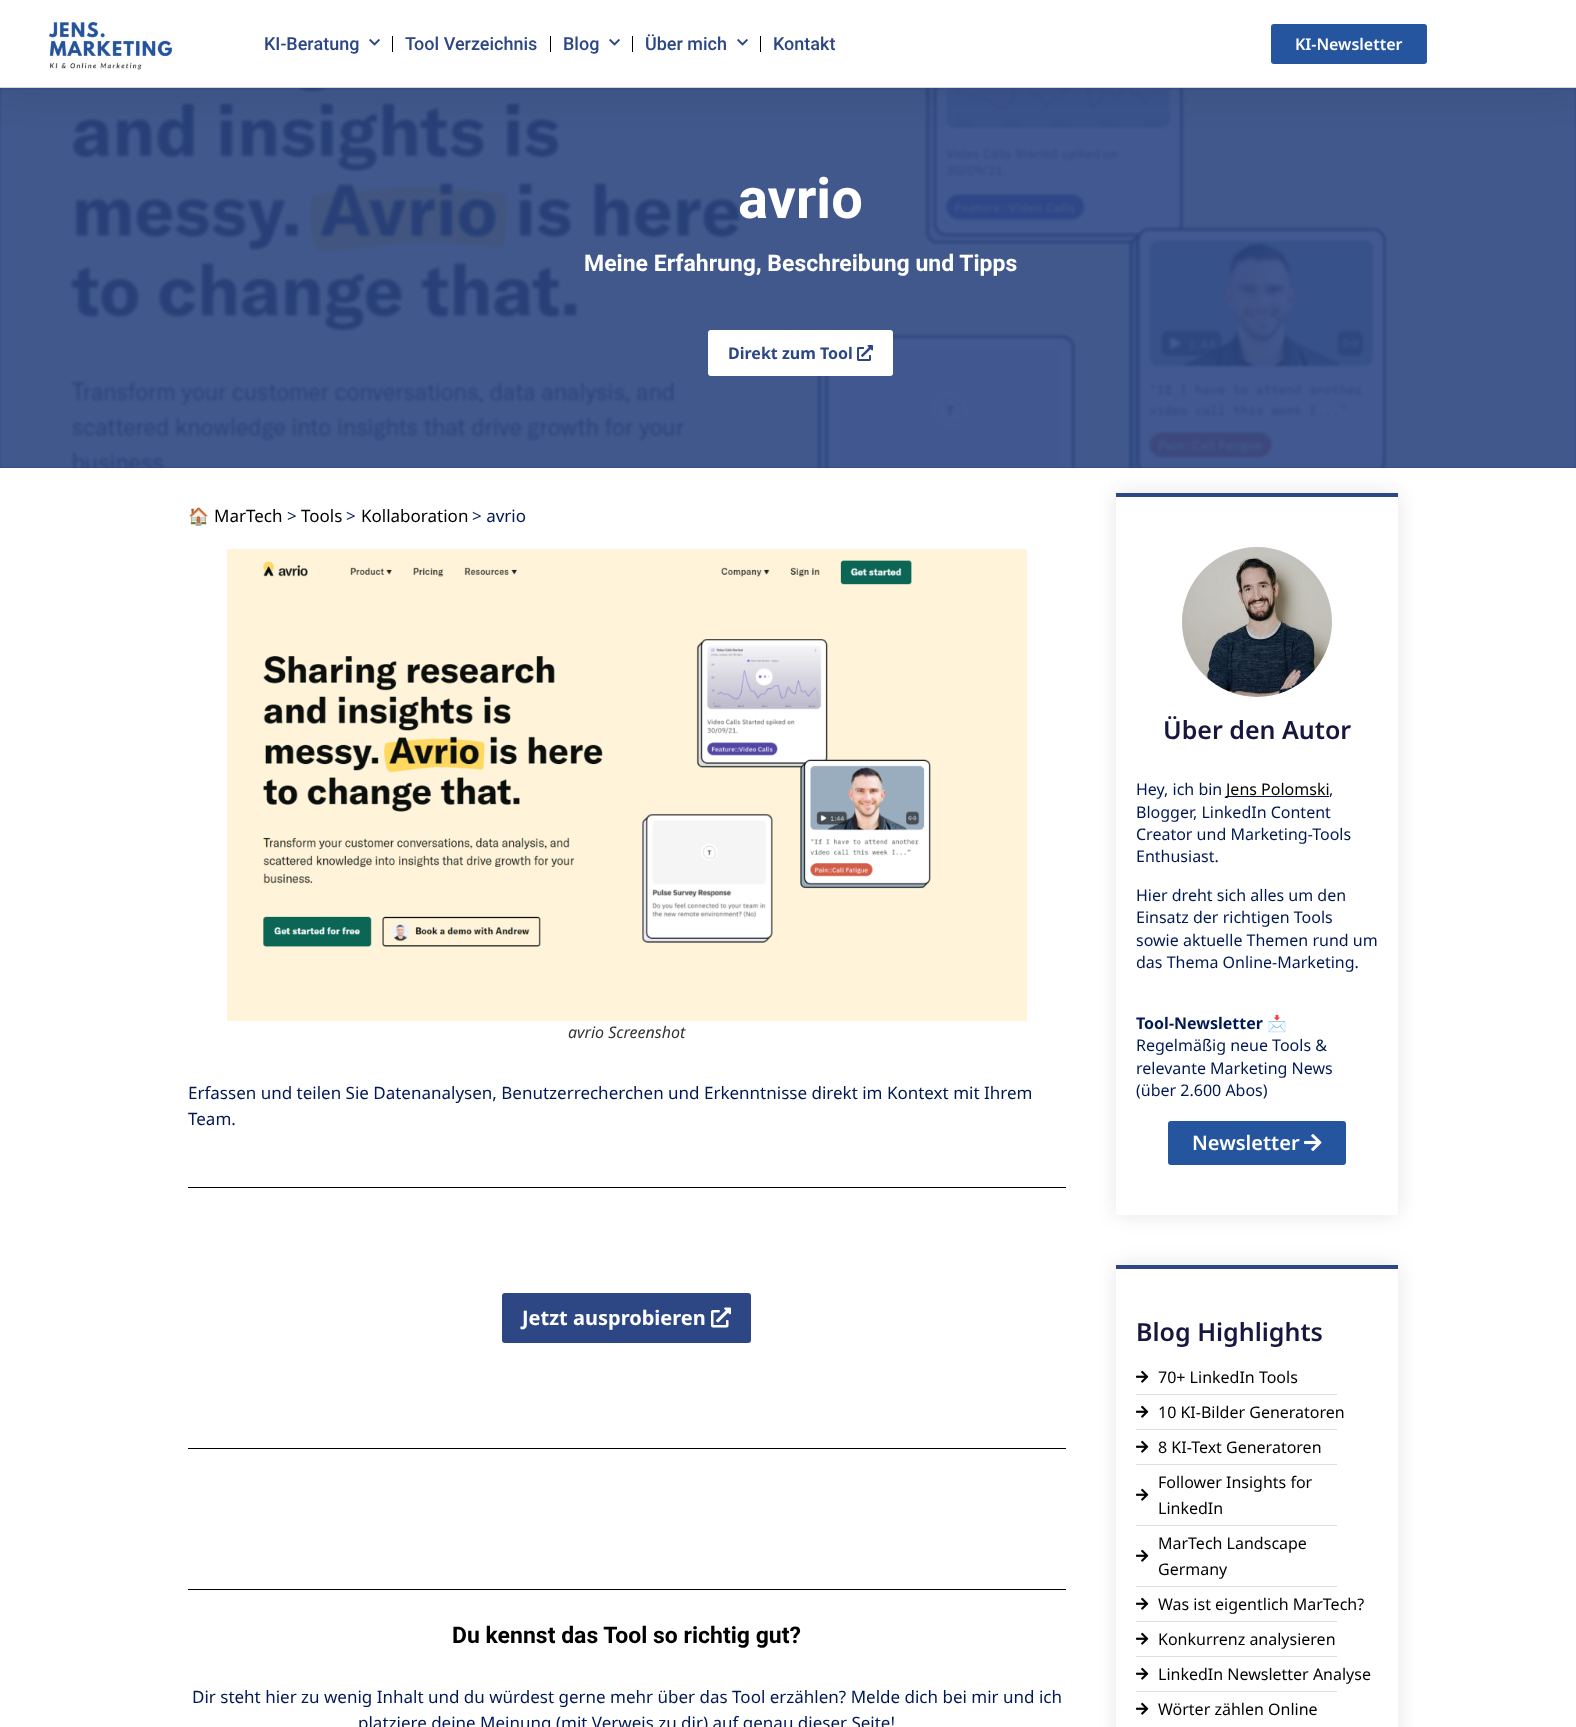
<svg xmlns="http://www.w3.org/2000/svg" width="1576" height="1727">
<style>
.a{font:500 18px Roboto;fill:#2c4784}
.b{font:600 16px Noto Sans;fill:#fff}
.c{font:bold 56px Roboto;fill:#fff}
.d{font:bold 23px Roboto;fill:#fff}
.e{font:bold 16px Noto Sans;fill:#2c4784}
.f{font:17px Noto Color Emoji;fill:#001854}
.g{font:17px Noto Sans;fill:#000}
.h{font:17px Noto Sans;fill:#001854}
.i{font:italic 16px Noto Sans;fill:#333}
.j{font:bold 20px Noto Sans;fill:#fff}
.k{font:bold 23px Roboto;fill:#000}
.l{font:600 25px Noto Sans;fill:#16163f}
.m{font:16px Noto Sans;fill:#001854}
.n{font:16px Noto Sans;fill:#000}
.o{font:bold 16px Noto Sans;fill:#001854}
.p{font:bold 16px Noto Color Emoji;fill:#001854}
.q{font:600 20px Noto Sans;fill:#fff}
</style>
<defs>
<clipPath id="clip1"><path d="M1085 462h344v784h-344zm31 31h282v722h-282z" clip-rule="evenodd"/></clipPath>
<clipPath id="clip2"><path d="M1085 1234h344v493h-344zm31 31h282v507h-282z" clip-rule="evenodd"/></clipPath>
</defs>
<rect width="100%" height="100%" fill="#fff"/>
<path fill="#2c4784" d="M0 88h1576v380H0z"/>
<image href="3.png" x="0" y="88" width="1576" height="381"/>
<path fill="#0000001a" filter="blur(20px)" d="M0 0h1576v88H0z"/>
<path fill="#fff" d="M0 0h1576v87H0z"/>
<path fill="#d6d6d6" d="M0 87h1576v1H0z"/>
<image href="1.png" x="48" y="19" width="126" height="51"/>
<image href="2.png" x="369" y="39" width="11" height="7"/>
<path fill="#000" d="M392 36h1v16H392z"/>
<path fill="#000" d="M550 36h1v16H550z"/>
<image href="2.png" x="609" y="39" width="11" height="7"/>
<path fill="#000" d="M632 36h1v16H632z"/>
<image href="2.png" x="737" y="39" width="11" height="7"/>
<path fill="#000" d="M760 36h1v16H760z"/>
<rect fill="#24559e" x="1271" y="24" width="156" height="40" rx="3"/>
<rect fill="#fff" x="708" y="330" width="185" height="46" rx="3"/>
<image href="4.png" x="857" y="345" width="16" height="16"/>
<image href="5.png" x="227" y="549" width="800" height="472"/>
<path fill="#000" d="M188 1187h878v1H188z"/>
<rect fill="#2c4784" x="502" y="1293" width="249" height="50" rx="3"/>
<image href="6.png" x="711" y="1307" width="20" height="21"/>
<path fill="#000" d="M188 1448h878v1H188z"/>
<path fill="#000" d="M188 1589h878v1H188z"/>
<g clip-path="url(#clip1)">
<path fill="#0000001a" filter="blur(10px)" d="M1116 493h282v722H1116z"/>
</g>
<path fill="#2c4784" d="M1116 493h282v4H1116z"/>
<image href="7.png" x="1182" y="547" width="150" height="150"/>
<path fill="#001854" d="M1226 796h103v1H1226z"/>
<rect fill="#24559e" x="1168" y="1121" width="178" height="44" rx="3"/>
<image href="8.png" x="1304" y="1134" width="18" height="17"/>
<g clip-path="url(#clip2)">
<path fill="#0000001a" filter="blur(10px)" d="M1116 1265h282v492H1116z"/>
</g>
<path fill="#2c4784" d="M1116 1265h282v4H1116z"/>
<image href="9.png" x="1136" y="1370" width="13" height="13"/>
<path fill="#ddd" d="M1136 1394h201v1H1136z"/>
<image href="9.png" x="1136" y="1405" width="13" height="13"/>
<path fill="#ddd" d="M1136 1429h201v1H1136z"/>
<image href="9.png" x="1136" y="1440" width="13" height="13"/>
<path fill="#ddd" d="M1136 1464h201v1H1136z"/>
<image href="9.png" x="1136" y="1488" width="13" height="13"/>
<path fill="#ddd" d="M1136 1525h201v1H1136z"/>
<image href="9.png" x="1136" y="1549" width="13" height="13"/>
<path fill="#ddd" d="M1136 1586h201v1H1136z"/>
<image href="9.png" x="1136" y="1597" width="13" height="13"/>
<path fill="#ddd" d="M1136 1621h201v1H1136z"/>
<image href="9.png" x="1136" y="1632" width="13" height="13"/>
<path fill="#ddd" d="M1136 1656h201v1H1136z"/>
<image href="9.png" x="1136" y="1667" width="13" height="13"/>
<path fill="#ddd" d="M1136 1691h201v1H1136z"/>
<image href="9.png" x="1136" y="1702" width="13" height="13"/>
<text class="a" x="264" y="50">KI-Beratung</text>
<text class="a" x="405" y="50">Tool Verzeichnis</text>
<text class="a" x="563" y="50">Blog</text>
<text class="a" x="645" y="50">Über mich</text>
<text class="a" x="773" y="50">Kontakt</text>
<text class="b" x="1295" y="50">KI-Newsletter</text>
<text class="c" x="738" y="218">avrio</text>
<text class="d" x="584" y="271">Meine Erfahrung, Beschreibung und Tipps</text>
<text class="e" x="728" y="359">Direkt zum Tool</text>
<text class="f" x="188" y="522">🏠</text>
<text class="g" x="214" y="522">MarTech</text>
<text class="h" x="287" y="522">&gt;</text>
<text class="g" x="301" y="522">Tools</text>
<text class="h" x="346" y="522">&gt;</text>
<text class="g" x="361" y="522">Kollaboration</text>
<text class="h" x="472" y="522">&gt; avrio</text>
<text class="i" x="568" y="1038">avrio Screenshot</text>
<text class="h" x="188" y="1099">Erfassen und teilen Sie Datenanalysen, Benutzerrecherchen und Erkenntnisse direkt im Kontext mit Ihrem</text>
<text class="h" x="188" y="1125">Team.</text>
<text class="j" x="522" y="1325">Jetzt ausprobieren</text>
<text class="k" x="452" y="1643">Du kennst das Tool so richtig gut?</text>
<text class="h" x="192" y="1703">Dir steht hier zu wenig Inhalt und du würdest gerne mehr über das Tool erzählen? Melde dich bei mir und ich</text>
<text class="h" x="358" y="1729">platziere deine Meinung (mit Verweis zu dir) auf genau dieser Seite!</text>
<text class="l" x="1163" y="739">Über den Autor</text>
<text class="m" x="1136" y="795">Hey, ich bin</text>
<text class="n" x="1226" y="795">Jens Polomski</text>
<text class="m" x="1329" y="795">,</text>
<text class="m" x="1136" y="818">Blogger, LinkedIn Content</text>
<text class="m" x="1136" y="840">Creator und Marketing-Tools</text>
<text class="m" x="1136" y="862">Enthusiast.</text>
<text class="m" x="1136" y="901">Hier dreht sich alles um den</text>
<text class="m" x="1136" y="923">Einsatz der richtigen Tools</text>
<text class="m" x="1136" y="946">sowie aktuelle Themen rund um</text>
<text class="m" x="1136" y="968">das Thema Online-Marketing.</text>
<text class="o" x="1136" y="1029">Tool-Newsletter</text>
<text class="p" x="1267" y="1029">📩</text>
<text class="m" x="1136" y="1051">Regelmäßig neue Tools &amp;</text>
<text class="m" x="1136" y="1074">relevante Marketing News</text>
<text class="m" x="1136" y="1096">(über 2.600 Abos)</text>
<text class="q" x="1192" y="1150">Newsletter</text>
<text class="l" x="1136" y="1341">Blog Highlights</text>
<text class="n" x="1158" y="1383">70+ LinkedIn Tools</text>
<text class="n" x="1158" y="1418">10 KI-Bilder Generatoren</text>
<text class="n" x="1158" y="1453">8 KI-Text Generatoren</text>
<text class="n" x="1158" y="1488">Follower Insights for</text>
<text class="n" x="1158" y="1514">LinkedIn</text>
<text class="n" x="1158" y="1549">MarTech Landscape</text>
<text class="n" x="1158" y="1575">Germany</text>
<text class="n" x="1158" y="1610">Was ist eigentlich MarTech?</text>
<text class="n" x="1158" y="1645">Konkurrenz analysieren</text>
<text class="n" x="1158" y="1680">LinkedIn Newsletter Analyse</text>
<text class="n" x="1158" y="1715">Wörter zählen Online</text>
</svg>
